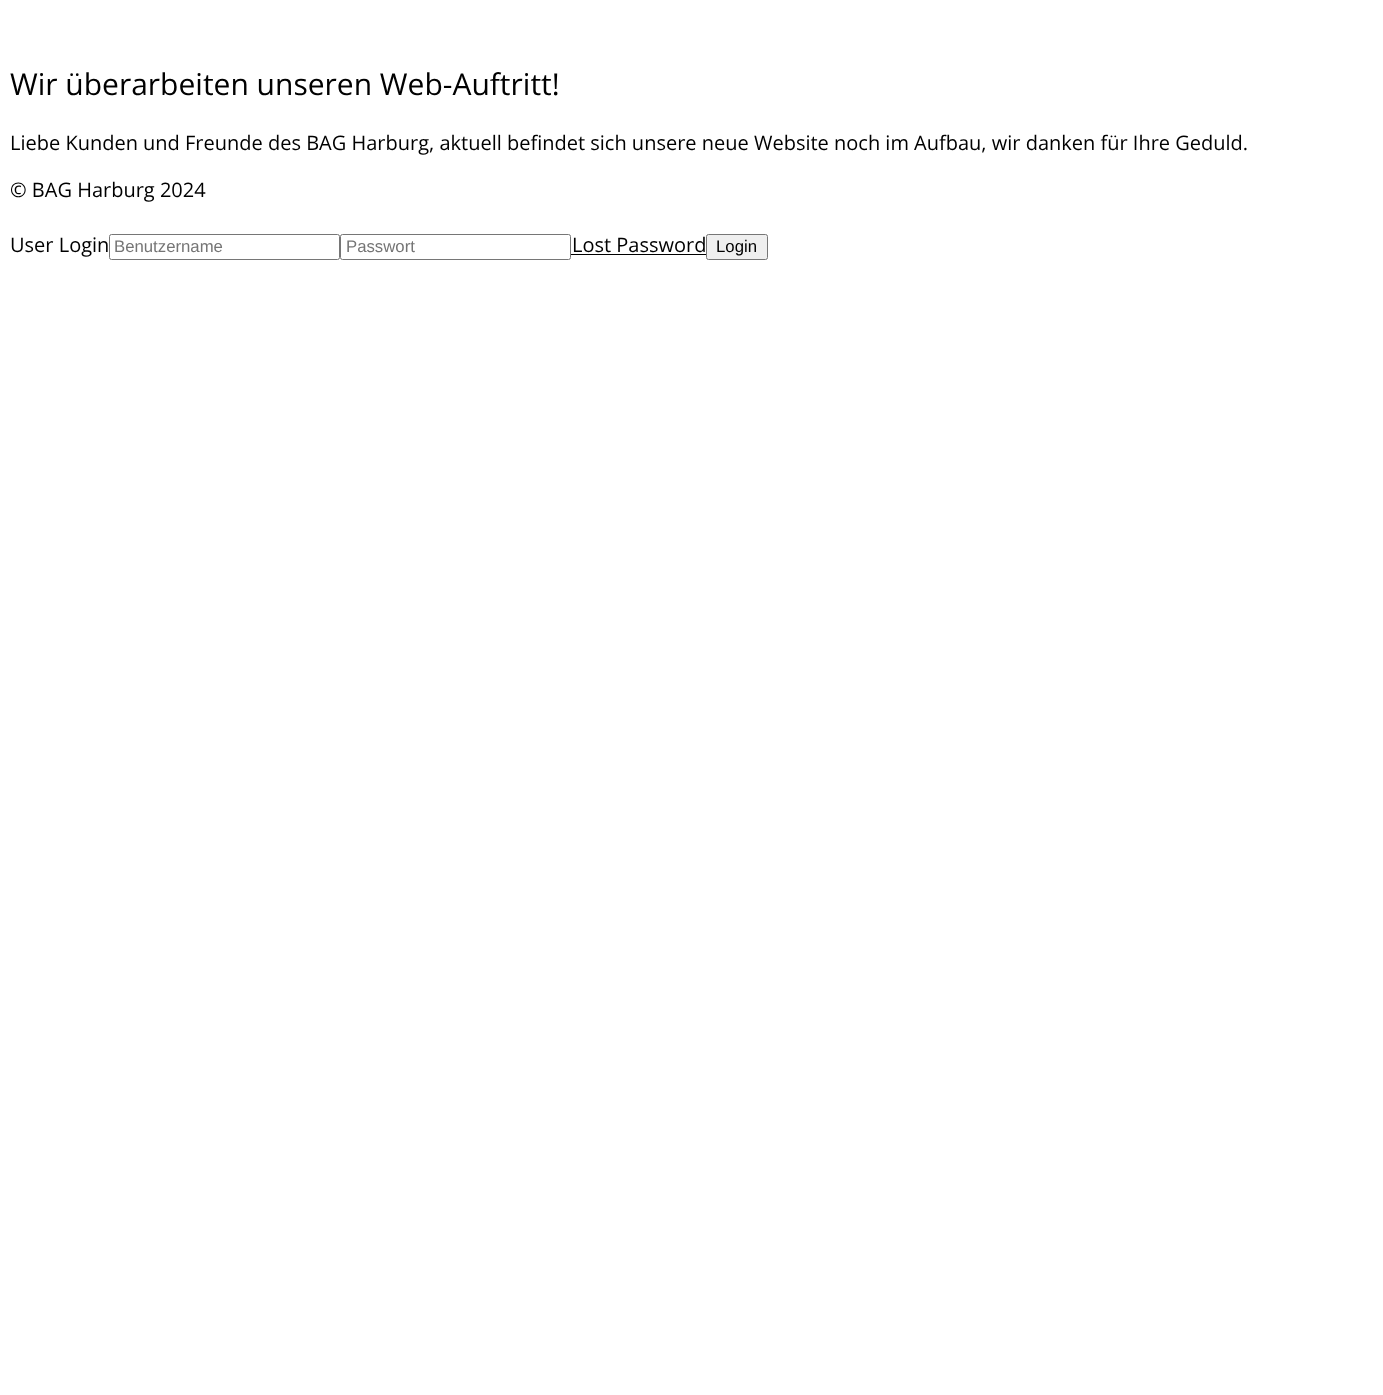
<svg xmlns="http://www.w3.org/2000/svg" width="1383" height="1395">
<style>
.a{font:30px Open Sans;fill:#000}
.b{font:20px Open Sans;fill:#000}
.c{font:16.75px Liberation Sans;fill:#757575}
.d{font:16.75px Liberation Sans;fill:#000}
</style>
<rect width="100%" height="100%" fill="#fff"/>
<rect fill="none" stroke="#767676" x="109.5" y="234.5" width="230" height="25" rx="2"/>
<rect fill="none" stroke="#767676" x="340.5" y="234.5" width="230" height="25" rx="2"/>
<path fill="#000" d="M571 254h135v1H571z"/>
<rect fill="#efefef" stroke="#767676" x="706.5" y="234.5" width="61" height="25" rx="2"/>
<text class="a" x="10" y="95">Wir überarbeiten unseren Web-Auftritt!</text>
<text class="b" x="10" y="150">Liebe Kunden und Freunde des BAG Harburg, aktuell befindet sich unsere neue Website noch im Aufbau, wir danken für Ihre Geduld.</text>
<text class="b" x="10" y="197">© BAG Harburg 2024</text>
<text class="b" x="10" y="252">User Login</text>
<text class="c" x="114" y="252">Benutzername</text>
<text class="c" x="346" y="252">Passwort</text>
<text class="b" x="572" y="252">Lost Password</text>
<text class="d" x="716" y="252">Login</text>
</svg>
